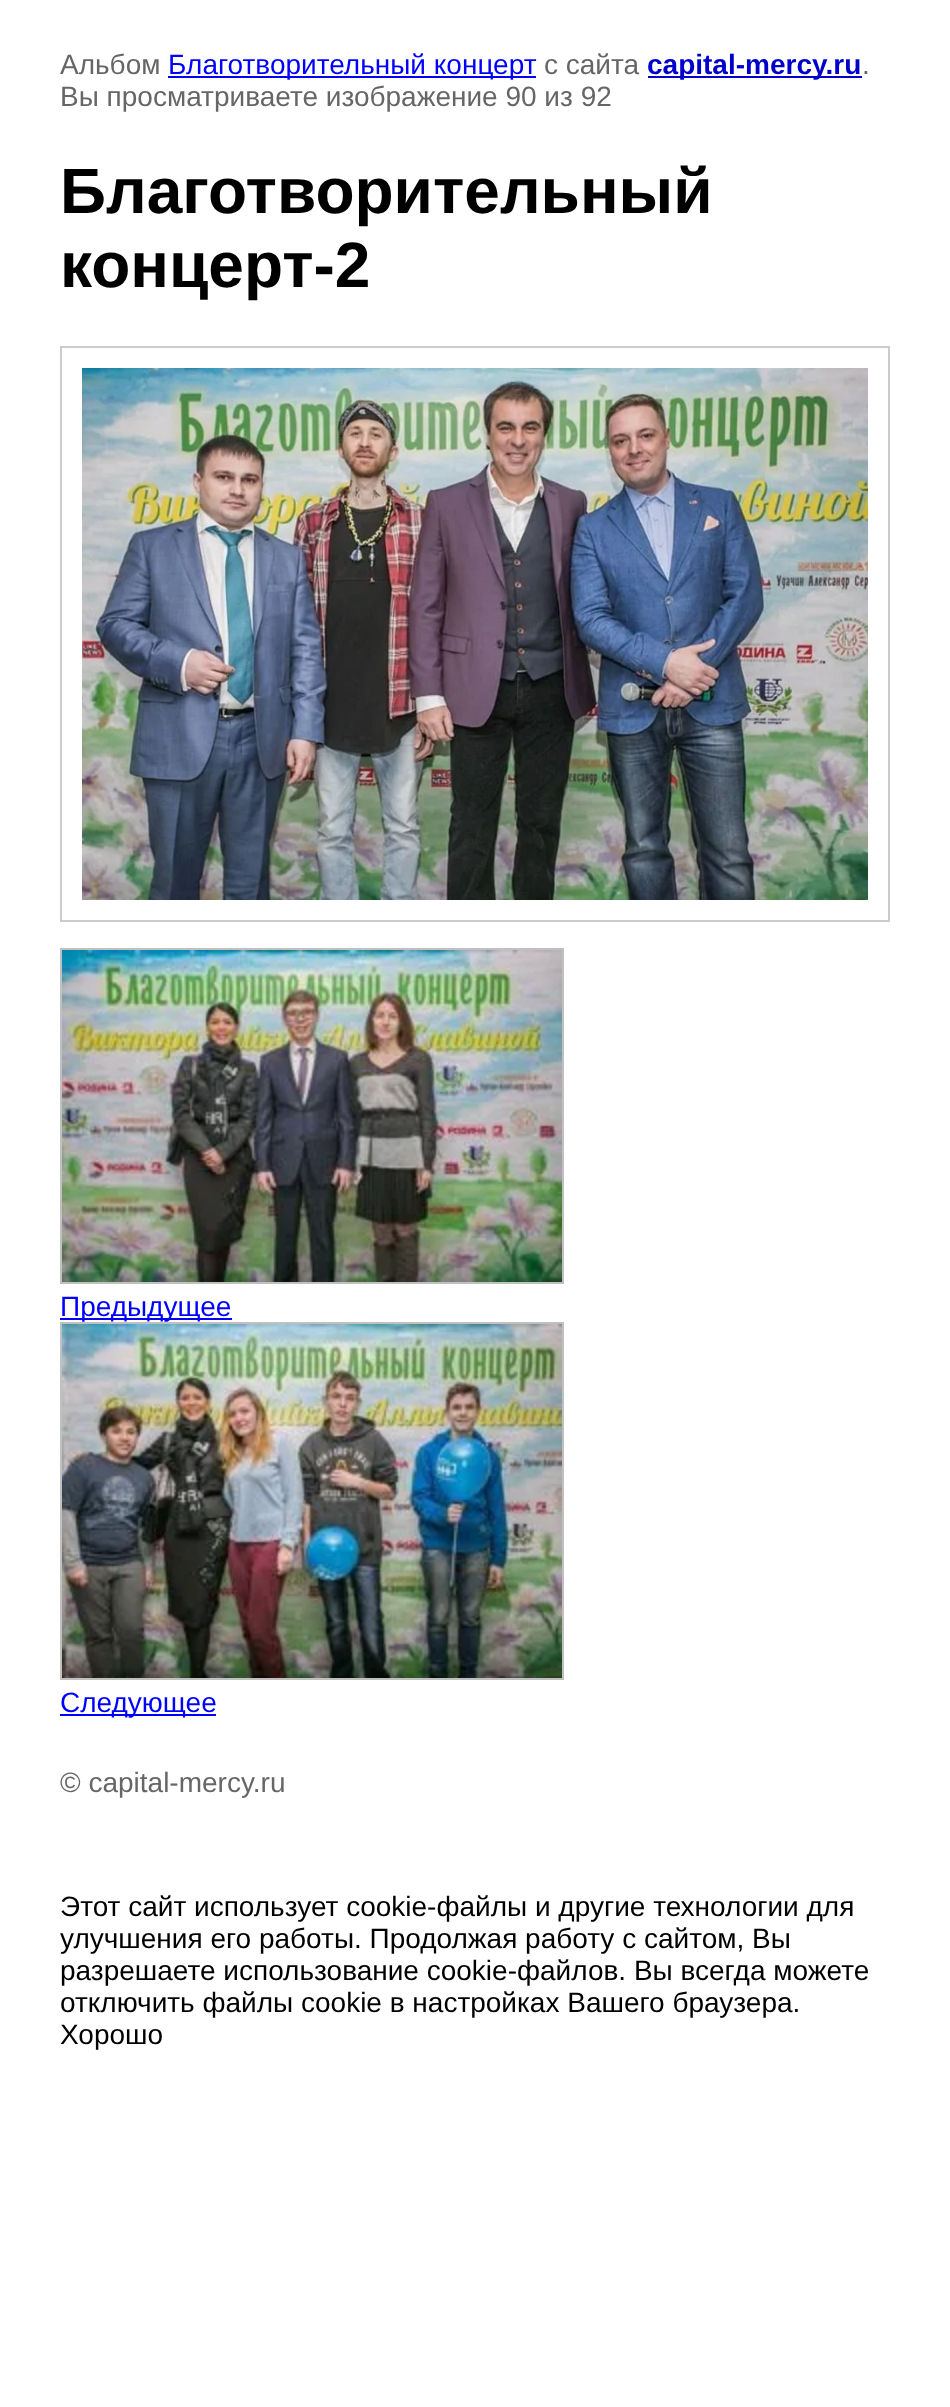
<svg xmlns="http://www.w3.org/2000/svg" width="950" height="2407">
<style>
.a{font:28px Liberation Sans;fill:#666}
.b{font:28px Liberation Sans;fill:#00f}
.c{font:bold 28px Liberation Sans;fill:#00c}
.d{font:bold 64px Liberation Sans;fill:#000}
.e{font:28px Liberation Sans;fill:#000}
</style>
<rect width="100%" height="100%" fill="#fff"/>
<path fill="#00f" d="M168 76h368v2H168z"/>
<path fill="#00c" d="M648 76h214v2H648z"/>
<path fill="none" stroke="#ccc" stroke-width="2" d="M61 347h828v574H61z"/>
<image href="1.png" x="82" y="368" width="786" height="532"/>
<path fill="none" stroke="#c0c0c0" stroke-width="2" d="M61 949h502v334H61z"/>
<image href="2.png" x="62" y="950" width="500" height="332"/>
<path fill="#00f" d="M60 1318h172v2H60z"/>
<path fill="none" stroke="#c0c0c0" stroke-width="2" d="M61 1323h502v356H61z"/>
<image href="3.png" x="62" y="1324" width="500" height="354"/>
<path fill="#00f" d="M60 1714h156v2H60z"/>
<text class="a" x="60" y="74">Альбом</text>
<text class="b" x="168" y="74">Благотворительный концерт</text>
<text class="a" x="544" y="74">с сайта</text>
<text class="c" x="647" y="74">capital-mercy.ru</text>
<text class="a" x="862" y="74">.</text>
<text class="a" x="60" y="106">Вы просматриваете изображение 90 из 92</text>
<text class="d" x="60" y="213">Благотворительный</text>
<text class="d" x="60" y="287">концерт-2</text>
<text class="b" x="60" y="1316">Предыдущее</text>
<text class="b" x="60" y="1712">Следующее</text>
<text class="a" x="60" y="1792">© capital-mercy.ru</text>
<text class="e" x="60" y="1916">Этот сайт использует cookie-файлы и другие технологии для</text>
<text class="e" x="60" y="1948">улучшения его работы. Продолжая работу с сайтом, Вы</text>
<text class="e" x="60" y="1980">разрешаете использование cookie-файлов. Вы всегда можете</text>
<text class="e" x="60" y="2012">отключить файлы cookie в настройках Вашего браузера.</text>
<text class="e" x="60" y="2044">Хорошо</text>
</svg>
